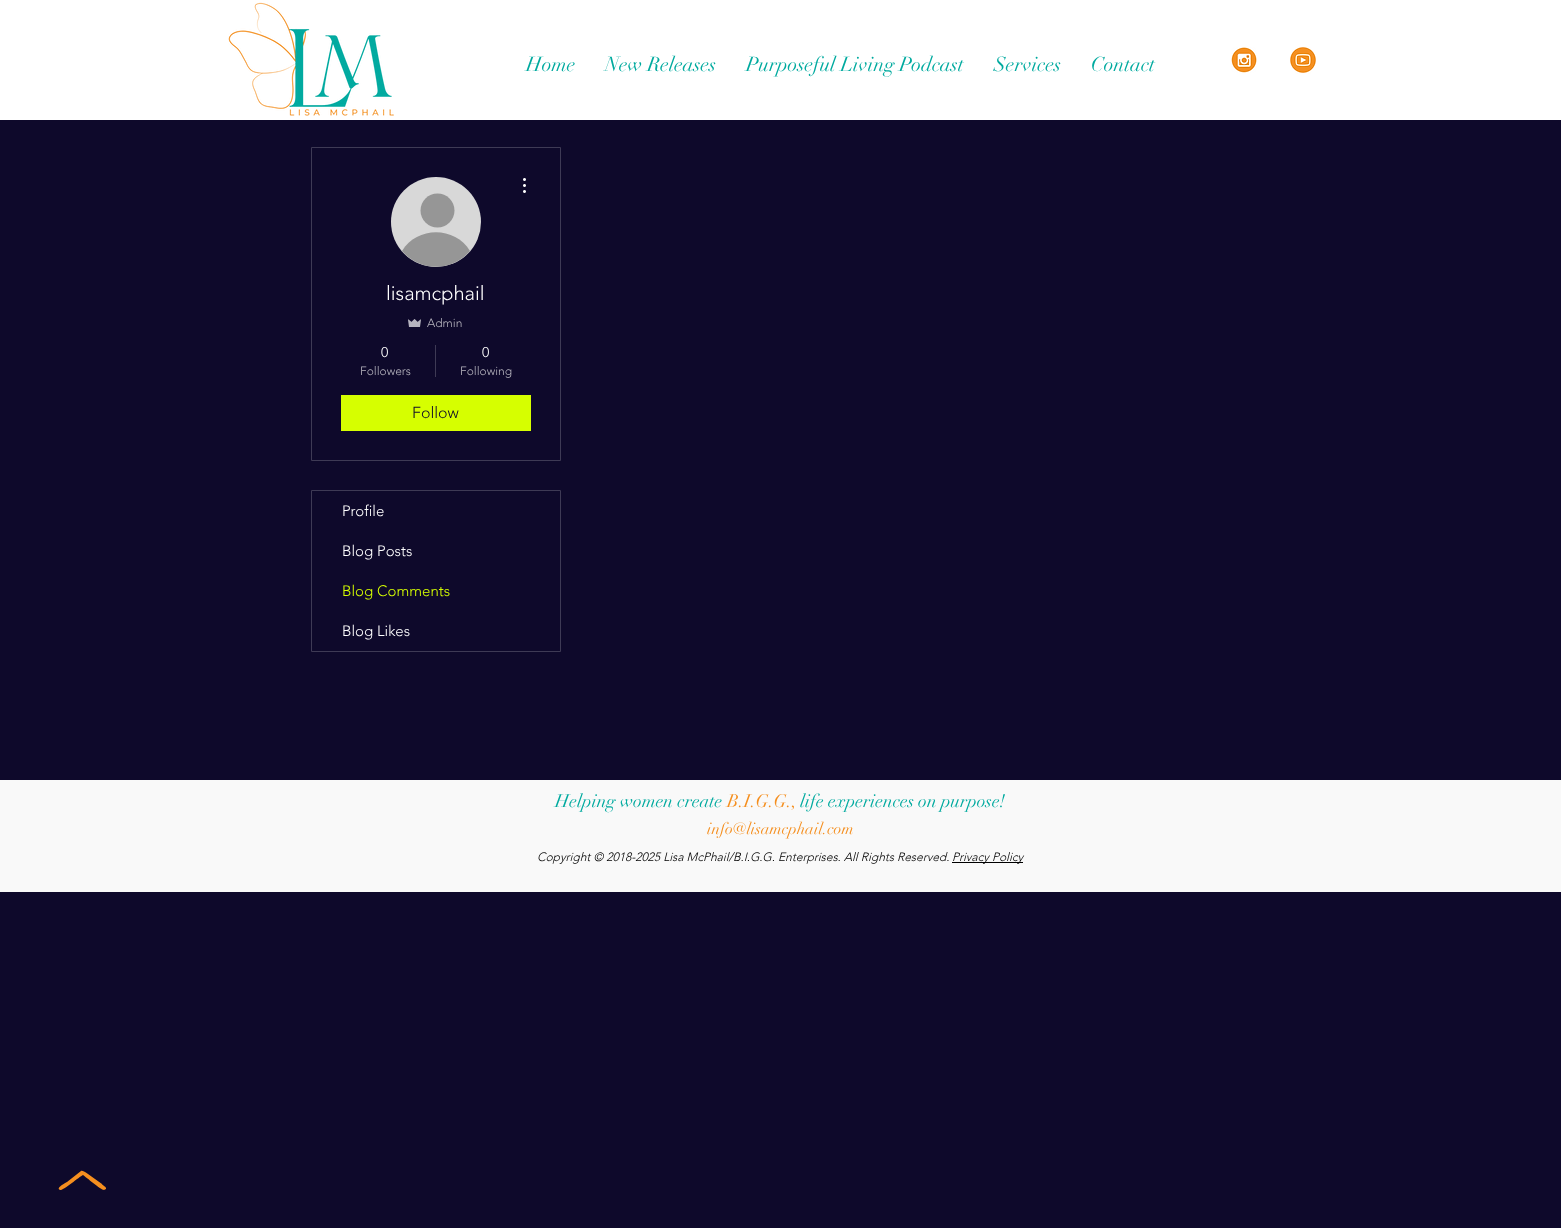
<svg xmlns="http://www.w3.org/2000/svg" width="1561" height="1228">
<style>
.a{font:20px didot;fill:#00aa9f}
.b{font:300 20px 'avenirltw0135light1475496';fill:#fff}
.c{font:300 12px 'avenirltw0135light1475496';fill:#b7b5bf}
.d{font:300 14px 'avenirltw0135light1475496';fill:#fff}
.e{font:300 16px 'avenirltw0135light1475496';fill:#0e092b}
.f{font:300 15px 'avenirltw0135light1475496';fill:#fff}
.g{font:300 15px 'avenirltw0135light1475496';fill:#d6ff00}
.h{font:18px didot;fill:#00aa9f}
.i{font:18px didot;fill:#f58f1f}
.j{font:16px didot;fill:#f58f1f}
.k{font:italic 300 12px 'avenirltw0135light1475496';fill:#000}
</style>
<rect width="100%" height="100%" fill="#0e092b"/>
<path fill="#fff" d="M0 0h1561v120H0z"/>
<image href="1.png" x="228" y="2" width="166" height="114"/>
<image href="2.png" x="1231" y="47" width="26" height="26"/>
<image href="3.png" x="1290" y="47" width="26" height="27"/>
<path fill="none" stroke="#3e3a55" d="M311.5 147.5h249v313H311.5z"/>
<circle fill="#d8d8d8" cx="436" cy="222" r="45"/>
<circle fill="#969696" cx="437.5" cy="210.5" r="17"/>
<path fill="#969696" d="M470 251c-18 21-50 21-68 0c15-25 53-25 68 0z"/>
<image href="4.png" x="523" y="178" width="3" height="15"/>
<image href="5.png" x="408" y="319" width="13" height="8"/>
<path fill="#3e3a55" d="M435 345h1v32H435z"/>
<path fill="#d6ff00" d="M341 395h190v36H341z"/>
<path fill="none" stroke="#3e3a55" d="M311.5 490.5h249v161H311.5z"/>
<path fill="#f9f9f9" d="M0 780h1561v112H0z"/>
<path fill="#000" d="M952 862h71v1H952z"/>
<path fill="#f58f1f" d="M104 1190c-3 0-18-13-21-15c-4 2-20 16-23 15c-4-2 2-5 7-8l14-11c2-1 5 2 7 3l14 10c0 1 5 3 4 5z"/>
<text class="a" x="526" y="71">Home</text>
<text class="a" x="605" y="71">New Releases</text>
<text class="a" x="746" y="71">Purposeful Living Podcast</text>
<text class="a" x="994" y="71">Services</text>
<text class="a" x="1091" y="71">Contact</text>
<text class="b" x="386" y="300">lisamcphail</text>
<text class="c" x="427" y="327">Admin</text>
<text class="d" x="381" y="357">0</text>
<text class="c" x="360" y="375">Followers</text>
<text class="d" x="482" y="357">0</text>
<text class="c" x="460" y="375">Following</text>
<text class="e" x="412" y="418">Follow</text>
<text class="f" x="342" y="516">Profile</text>
<text class="f" x="342" y="556">Blog Posts</text>
<text class="g" x="342" y="596">Blog Comments</text>
<text class="f" x="342" y="636">Blog Likes</text>
<text class="h" x="555" y="807">Helping women create</text>
<text class="i" x="727" y="807">B.I.G.G.,</text>
<text class="h" x="800" y="807">life experiences on purpose!</text>
<text class="j" x="707" y="834">info@lisamcphail.com</text>
<text class="k" x="537" y="861">Copyright © 2018-2025 Lisa McPhail/B.I.G.G. Enterprises. All Rights Reserved.</text>
<text class="k" x="952" y="861">Privacy Policy</text>
</svg>
